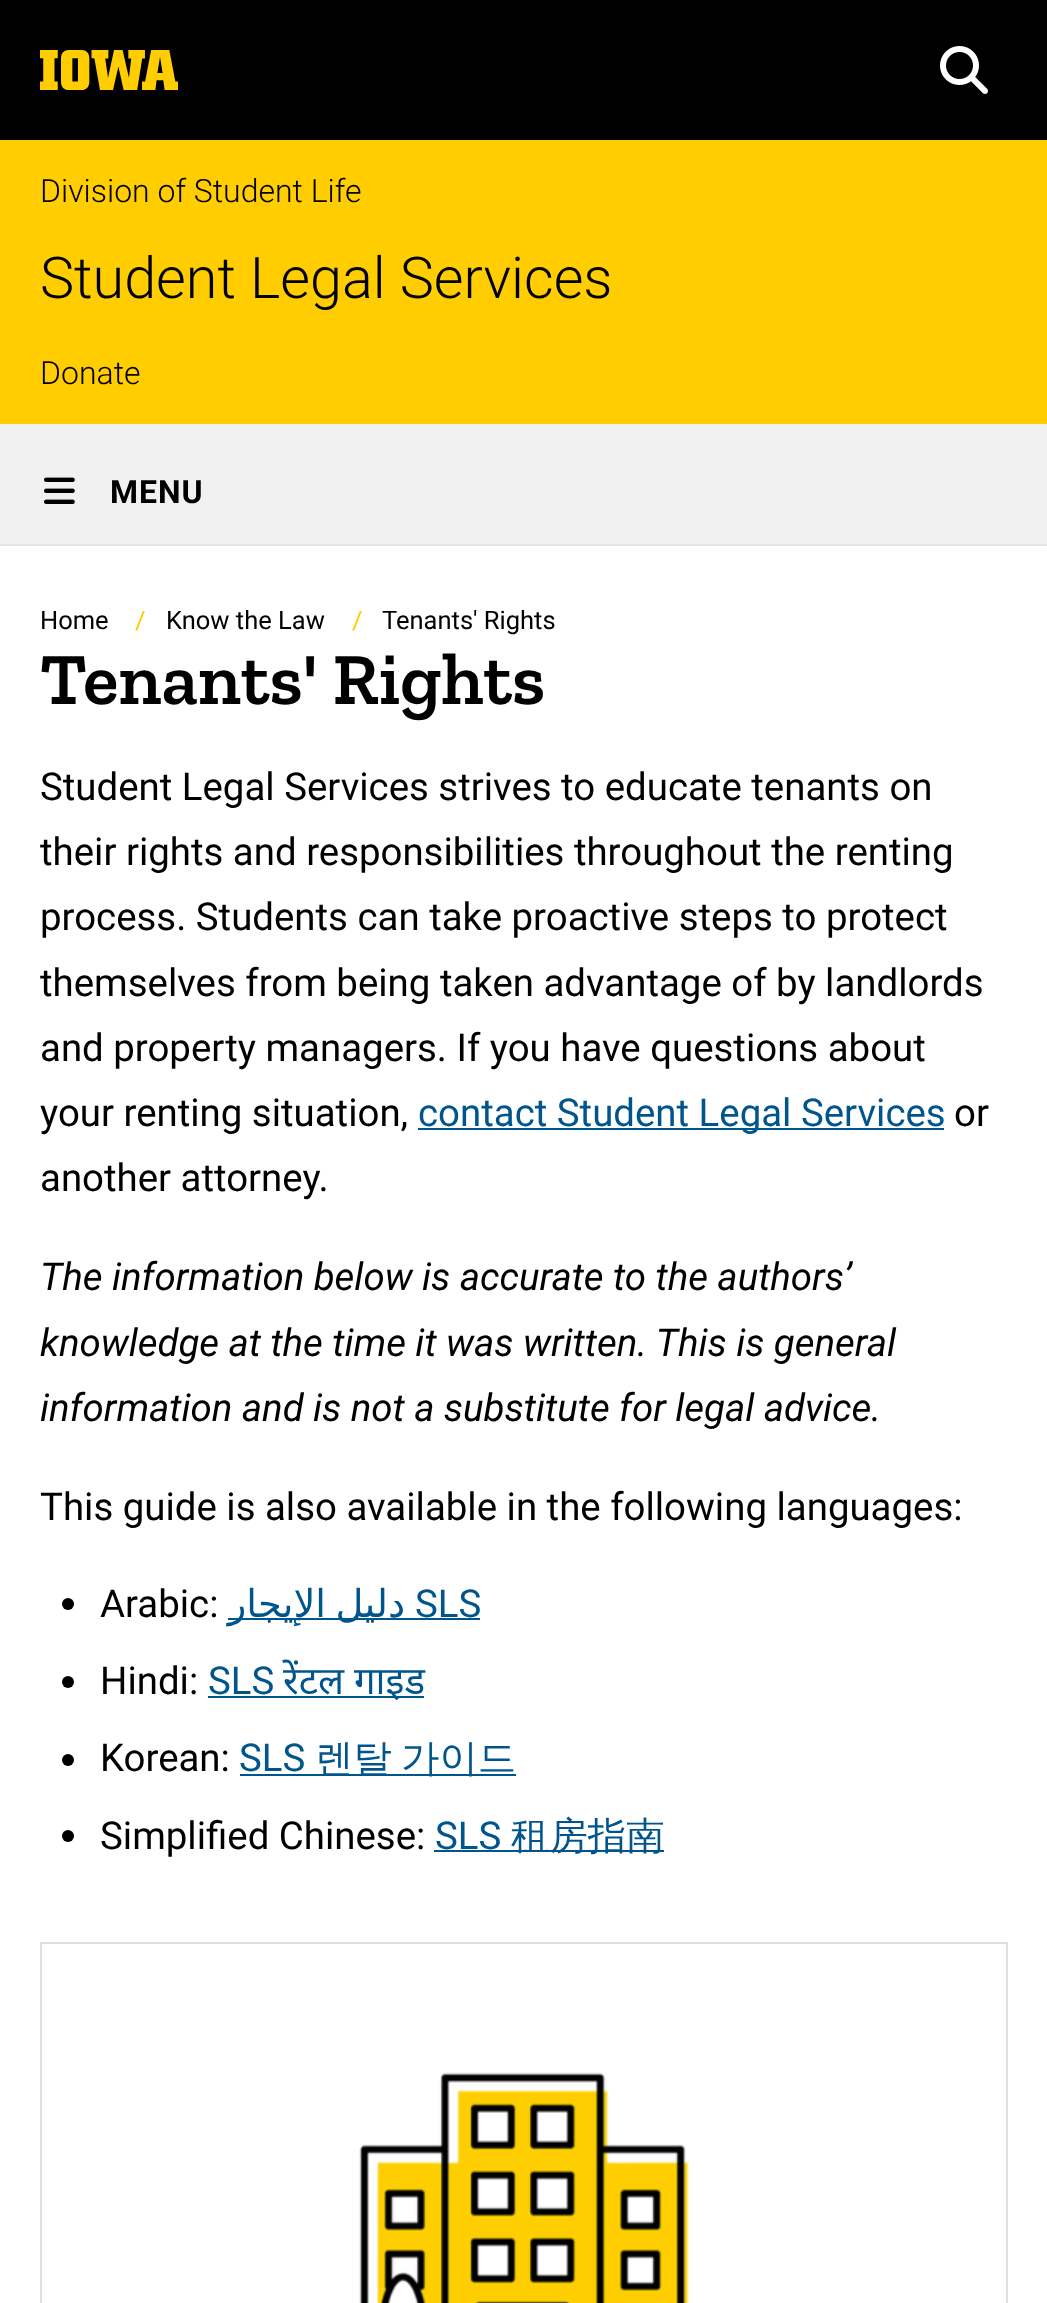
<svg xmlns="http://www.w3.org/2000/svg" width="1047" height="2303">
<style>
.a{font:300 32px Roboto;fill:#000}
.b{font:300 57.5px Roboto;fill:#000}
.c{font:bold 32px Roboto;letter-spacing:1px;fill:#000}
.d{font:25.5px Roboto;fill:#000}
.e{font:25.5px Roboto;fill:#ffcd00}
.f{font:600 73.5px Zilla Slab;fill:#000}
.g{font:38.4px Roboto;fill:#000}
.h{font:38.4px Roboto;fill:#00558c}
.i{font:italic 38.4px Roboto;fill:#000}
.j{font:38.4px DejaVu Sans;direction:rtl;fill:#00558c}
.k{font:38.4px Noto Sans;fill:#00558c}
.l{font:500 38.4px WenQuanYi Zen Hei;fill:#00558c}
</style>
<rect width="100%" height="100%" fill="#fff"/>
<path fill="#000" d="M0 0h1047v140H0z"/>
<image href="1.png" x="40" y="50" width="138" height="40"/>
<path fill="#ffcd00" d="M0 140h1047v284H0z"/>
<image href="2.png" x="940" y="46" width="48" height="48"/>
<path fill="#e6e5e5" d="M0 544h1047v2H0z"/>
<path fill="#f1f1f1" d="M0 424h1047v120H0z"/>
<image href="3.png" x="44" y="477" width="31" height="27"/>
<path fill="#00558c" d="M418 1128h526v2H418z"/>
<circle fill="#000" cx="68" cy="1604" r="6"/>
<path fill="#00558c" d="M228 1618h252v2H228z"/>
<circle fill="#000" cx="68" cy="1682" r="6"/>
<path fill="#00558c" d="M208 1696h216v2H208z"/>
<circle fill="#000" cx="68" cy="1760" r="6"/>
<path fill="#00558c" d="M240 1774h276v2H240z"/>
<circle fill="#000" cx="68" cy="1836" r="6"/>
<path fill="#00558c" d="M434 1850h230v2H434z"/>
<path fill="none" stroke="#dfdfdf" stroke-width="2" d="M41 1943h966v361H41z"/>
<image href="4.png" x="359" y="2072" width="331" height="231"/>
<text class="a" x="40" y="202">Division of Student Life</text>
<text class="b" x="40" y="298">Student Legal Services</text>
<text class="a" x="40" y="384">Donate</text>
<text class="c" x="110" y="503">MENU</text>
<text class="d" x="40" y="629">Home</text>
<text class="e" x="135" y="629">/</text>
<text class="d" x="166" y="629">Know the Law</text>
<text class="e" x="352" y="629">/</text>
<text class="d" x="382" y="629">Tenants' Rights</text>
<text class="f" x="40" y="704">Tenants' Rights</text>
<text class="g" x="40" y="800">Student Legal Services strives to educate tenants on</text>
<text class="g" x="40" y="865">their rights and responsibilities throughout the renting</text>
<text class="g" x="40" y="930">process. Students can take proactive steps to protect</text>
<text class="g" x="40" y="996">themselves from being taken advantage of by landlords</text>
<text class="g" x="40" y="1061">and property managers. If you have questions about</text>
<text class="g" x="40" y="1126">your renting situation,</text>
<text class="h" x="418" y="1126">contact Student Legal Services</text>
<text class="g" x="954" y="1126">or</text>
<text class="g" x="40" y="1191">another attorney.</text>
<text class="i" x="40" y="1290">The information below is accurate to the authors’</text>
<text class="i" x="40" y="1356">knowledge at the time it was written. This is general</text>
<text class="i" x="40" y="1421">information and is not a substitute for legal advice.</text>
<text class="g" x="40" y="1520">This guide is also available in the following languages:</text>
<text class="g" x="100" y="1617">Arabic:</text>
<text class="j" x="326" y="1617">الإيجار</text>
<text class="j" x="405" y="1617">دليل</text>
<text class="h" x="415" y="1617">SLS</text>
<text class="g" x="100" y="1694">Hindi:</text>
<text class="h" x="208" y="1694">SLS</text>
<text class="k" x="283" y="1694">रेंटल</text>
<text class="k" x="354" y="1694">गाइड</text>
<text class="g" x="100" y="1771">Korean:</text>
<text class="h" x="239" y="1771">SLS</text>
<text class="l" x="315" y="1771">렌탈</text>
<text class="l" x="401" y="1771">가이드</text>
<text class="g" x="100" y="1849">Simplified Chinese:</text>
<text class="h" x="435" y="1849">SLS</text>
<text class="l" x="511" y="1849">租房指南</text>
</svg>
